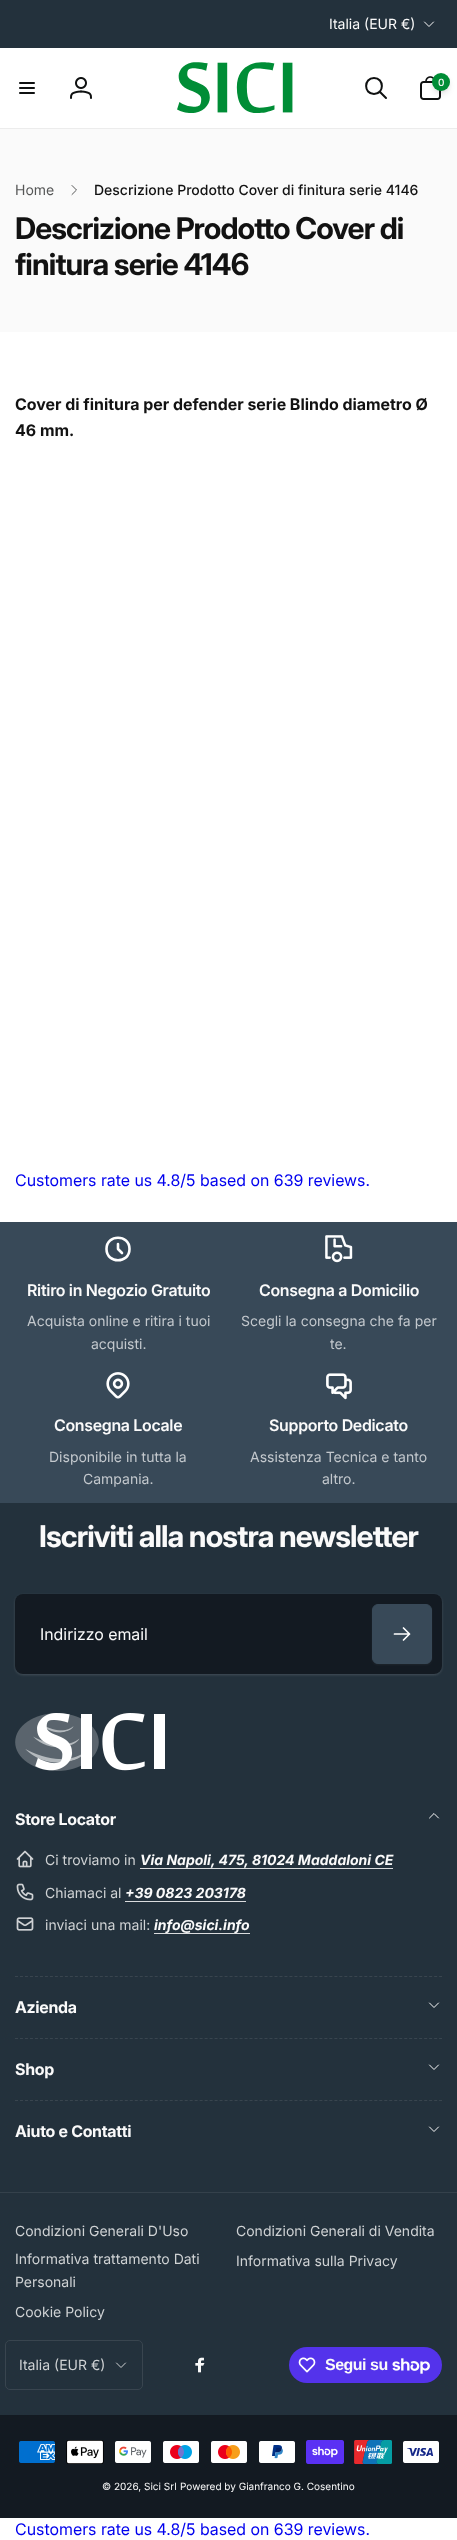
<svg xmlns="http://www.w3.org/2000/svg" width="457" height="2540">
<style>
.a{font:14px 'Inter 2';fill:#fafafa}
.b{font:500 10px Inter;fill:#fafafa}
.c{font:14px 'Inter 2';fill:#565757}
.d{font:500 14px Inter;fill:#121212}
.e{font:bold 30px 'Inter 2';letter-spacing:-0.9px;fill:#121212}
.f{font:bold 16px Inter;fill:#121212}
.g{font:16px Inter;fill:#00e}
.h{font:600 16px Inter;letter-spacing:-0.3px;fill:#fafafa}
.i{font:14px 'Inter 2';fill:#c3c8cd}
.j{font:bold 30px 'Inter 2';letter-spacing:-0.9px;fill:#fafafa}
.k{font:16px Inter;fill:#fafafa}
.l{font:bold 16px Inter;letter-spacing:-0.3px;fill:#fafafa}
.m{font:14px 'Inter 2';fill:#cfd2d4}
.n{font:italic bold 14px Inter;fill:#fafafa}
.o{font:bold 16px Liberation Sans;letter-spacing:-0.5px;fill:#fafafa}
.p{font:10px 'Inter 2';fill:#fafafa}
</style>
<rect width="100%" height="100%" fill="#fff"/>
<path fill="#23313c" d="M0 0h457v48H0z"/>
<path fill="none" stroke="#fafafa" stroke-linecap="round" stroke-linejoin="round" d="M433.5 22l-4.5 4.5l-4.5-4.5"/>
<path fill="#ececec" d="M0 128h457v1H0z"/>
<image href="1.png" x="19" y="82" width="16" height="12"/>
<image href="2.png" x="70" y="77" width="22" height="22"/>
<image href="3.png" x="177" y="62" width="116" height="51"/>
<path fill="none" stroke="#0f1111" stroke-width="2" stroke-linecap="round" stroke-linejoin="round" d="M386 98l-6.5-6.5m-5.5 2.5c10.5 0 10.5-16 0-16c-10.5 0-10.5 16 0 16z"/>
<image href="4.png" x="420" y="76" width="21" height="24"/>
<rect fill="#0f11110f" filter="blur(2px)" x="433" y="76" width="16" height="16" rx="8"/>
<rect fill="#0f11111a" filter="blur(3px)" x="433" y="78" width="16" height="16" rx="8"/>
<circle fill="#008d36" cx="441" cy="82" r="9"/>
<path fill="#fafafa" d="M0 129h457v203H0z"/>
<path fill="none" stroke="#565757" stroke-linecap="round" stroke-linejoin="round" d="M72 185.5l4.5 4.5l-4.5 4.5"/>
<path fill="#384958" d="M0 1222h457v281H0z"/>
<path fill="none" stroke="#fff" stroke-width="2.6" stroke-linecap="round" stroke-linejoin="round" d="M118 1244v5l4 4m7.5-4c0 15-23 15-23 0c0-15 23-15 23 0z"/>
<image href="5.png" x="325" y="1235" width="28" height="28"/>
<image href="6.png" x="106" y="1372" width="24" height="27"/>
<image href="7.png" x="326" y="1373" width="26" height="27"/>
<path fill="#23313c" d="M0 1503h457v912H0z"/>
<rect fill="#fafafa1a" filter="blur(1.5px)" x="15" y="1595" width="427" height="80" rx="8"/>
<rect fill="#fafafa0f" filter="blur(1px)" x="15" y="1595" width="427" height="80" rx="8"/>
<rect fill="#131a22" x="15" y="1594" width="427" height="80" rx="8"/>
<rect fill="#fafafa0d" filter="blur(1px)" x="372" y="1605" width="60" height="60" rx="6"/>
<rect fill="#384958" stroke="#384958" x="372.5" y="1604.5" width="59" height="59" rx="5.5"/>
<path fill="none" stroke="#fff" stroke-width="1.7" stroke-linecap="round" stroke-linejoin="round" d="M403.5 1628l6 6m0 0l-6 6m6-6h-15"/>
<path fill="none" stroke="#39454f" stroke-dasharray="3 1.99" d="M15 1976.5h427"/>
<image href="8.png" x="15" y="1713" width="150" height="58"/>
<path fill="none" stroke="#fafafa" stroke-linecap="round" stroke-linejoin="round" d="M429.5 1818l4.5-4.5l4.5 4.5"/>
<image href="9.png" x="16" y="1850" width="18" height="18"/>
<path fill="#dadcde" d="M140 1868h253v1H140z"/>
<image href="10.png" x="16" y="1883" width="18" height="18"/>
<path fill="#dadcde" d="M125 1901h121v1H125z"/>
<image href="11.png" x="16" y="1917" width="18" height="14"/>
<path fill="#dadcde" d="M154 1933h96v1H154z"/>
<path fill="none" stroke="#39454f" stroke-dasharray="3 1.99" d="M15 2038.5h427"/>
<path fill="none" stroke="#fafafa" stroke-linecap="round" stroke-linejoin="round" d="M438.5 2003l-4.5 4.5l-4.5-4.5"/>
<path fill="none" stroke="#39454f" stroke-dasharray="3 1.99" d="M15 2100.5h427"/>
<path fill="none" stroke="#fafafa" stroke-linecap="round" stroke-linejoin="round" d="M438.5 2065l-4.5 4.5l-4.5-4.5"/>
<path fill="none" stroke="#fafafa" stroke-linecap="round" stroke-linejoin="round" d="M438.5 2127l-4.5 4.5l-4.5-4.5"/>
<path fill="#34414b" d="M0 2192h457v1H0z"/>
<rect fill="none" stroke="#39454f" x="5.5" y="2340.5" width="137" height="49" rx="4.5"/>
<path fill="none" stroke="#cfd2d4" stroke-linecap="round" stroke-linejoin="round" d="M125.5 2363l-4.5 4.5l-4.5-4.5"/>
<image href="12.png" x="195" y="2357" width="10" height="16"/>
<rect fill="#5433eb" x="289" y="2347" width="153" height="36" rx="18"/>
<image href="13.png" x="298" y="2357" width="18" height="16"/>
<image href="14.png" x="392" y="2358" width="38" height="16"/>
<path fill="#131a22" d="M0 2415h457v103H0z"/>
<image href="15.png" x="19" y="2441" width="36" height="22"/>
<image href="16.png" x="66" y="2440" width="38" height="24"/>
<image href="17.png" x="115" y="2441" width="36" height="22"/>
<image href="18.png" x="163" y="2441" width="36" height="22"/>
<image href="19.png" x="211" y="2441" width="36" height="22"/>
<image href="20.png" x="259" y="2441" width="36" height="22"/>
<image href="21.png" x="306" y="2440" width="38" height="24"/>
<image href="22.png" x="354" y="2440" width="38" height="24"/>
<image href="23.png" x="403" y="2441" width="36" height="22"/>
<text class="a" x="329" y="29">Italia (EUR €)</text>
<text class="b" x="438" y="86">0</text>
<text class="c" x="15" y="195">Home</text>
<text class="d" x="94" y="195">Descrizione Prodotto Cover di finitura serie 4146</text>
<text class="e" x="15" y="239">Descrizione Prodotto Cover di</text>
<text class="e" x="15" y="275">finitura serie 4146</text>
<text class="f" x="15" y="410">Cover di finitura per defender serie Blindo diametro Ø</text>
<text class="f" x="15" y="436">46 mm.</text>
<text class="g" x="15" y="1186">Customers rate us 4.8/5 based on 639 reviews.</text>
<text class="h" x="27" y="1296">Ritiro in Negozio Gratuito</text>
<text class="i" x="27" y="1326">Acquista online e ritira i tuoi</text>
<text class="i" x="91" y="1349">acquisti.</text>
<text class="h" x="259" y="1296">Consegna a Domicilio</text>
<text class="i" x="241" y="1326">Scegli la consegna che fa per</text>
<text class="i" x="330" y="1349">te.</text>
<text class="h" x="54" y="1431">Consegna Locale</text>
<text class="i" x="49" y="1462">Disponibile in tutta la</text>
<text class="i" x="83" y="1484">Campania.</text>
<text class="h" x="269" y="1431">Supporto Dedicato</text>
<text class="i" x="250" y="1462">Assistenza Tecnica e tanto</text>
<text class="i" x="322" y="1484">altro.</text>
<text class="j" x="39" y="1547">Iscriviti alla nostra newsletter</text>
<text class="k" x="40" y="1640">Indirizzo email</text>
<text class="l" x="15" y="1825">Store Locator</text>
<text class="m" x="45" y="1865">Ci troviamo in</text>
<text class="n" x="140" y="1865">Via Napoli, 475, 81024 Maddaloni CE</text>
<text class="m" x="45" y="1898">Chiamaci al</text>
<text class="n" x="125" y="1898">+39 0823 203178</text>
<text class="m" x="45" y="1930">inviaci una mail:</text>
<text class="n" x="154" y="1930">info@sici.info</text>
<text class="l" x="15" y="2013">Azienda</text>
<text class="l" x="15" y="2075">Shop</text>
<text class="l" x="15" y="2137">Aiuto e Contatti</text>
<text class="m" x="15" y="2236">Condizioni Generali D'Uso</text>
<text class="m" x="236" y="2236">Condizioni Generali di Vendita</text>
<text class="m" x="15" y="2264">Informativa trattamento Dati</text>
<text class="m" x="15" y="2287">Personali</text>
<text class="m" x="236" y="2266">Informativa sulla Privacy</text>
<text class="m" x="15" y="2317">Cookie Policy</text>
<text class="m" x="19" y="2370">Italia (EUR €)</text>
<text class="o" x="325" y="2370">Segui su</text>
<text class="p" x="102" y="2490">© 2026, Sici Srl</text>
<text class="p" x="180" y="2490">Powered by Gianfranco G. Cosentino</text>
<text class="g" x="15" y="2535">Customers rate us 4.8/5 based on 639 reviews.</text>
</svg>
